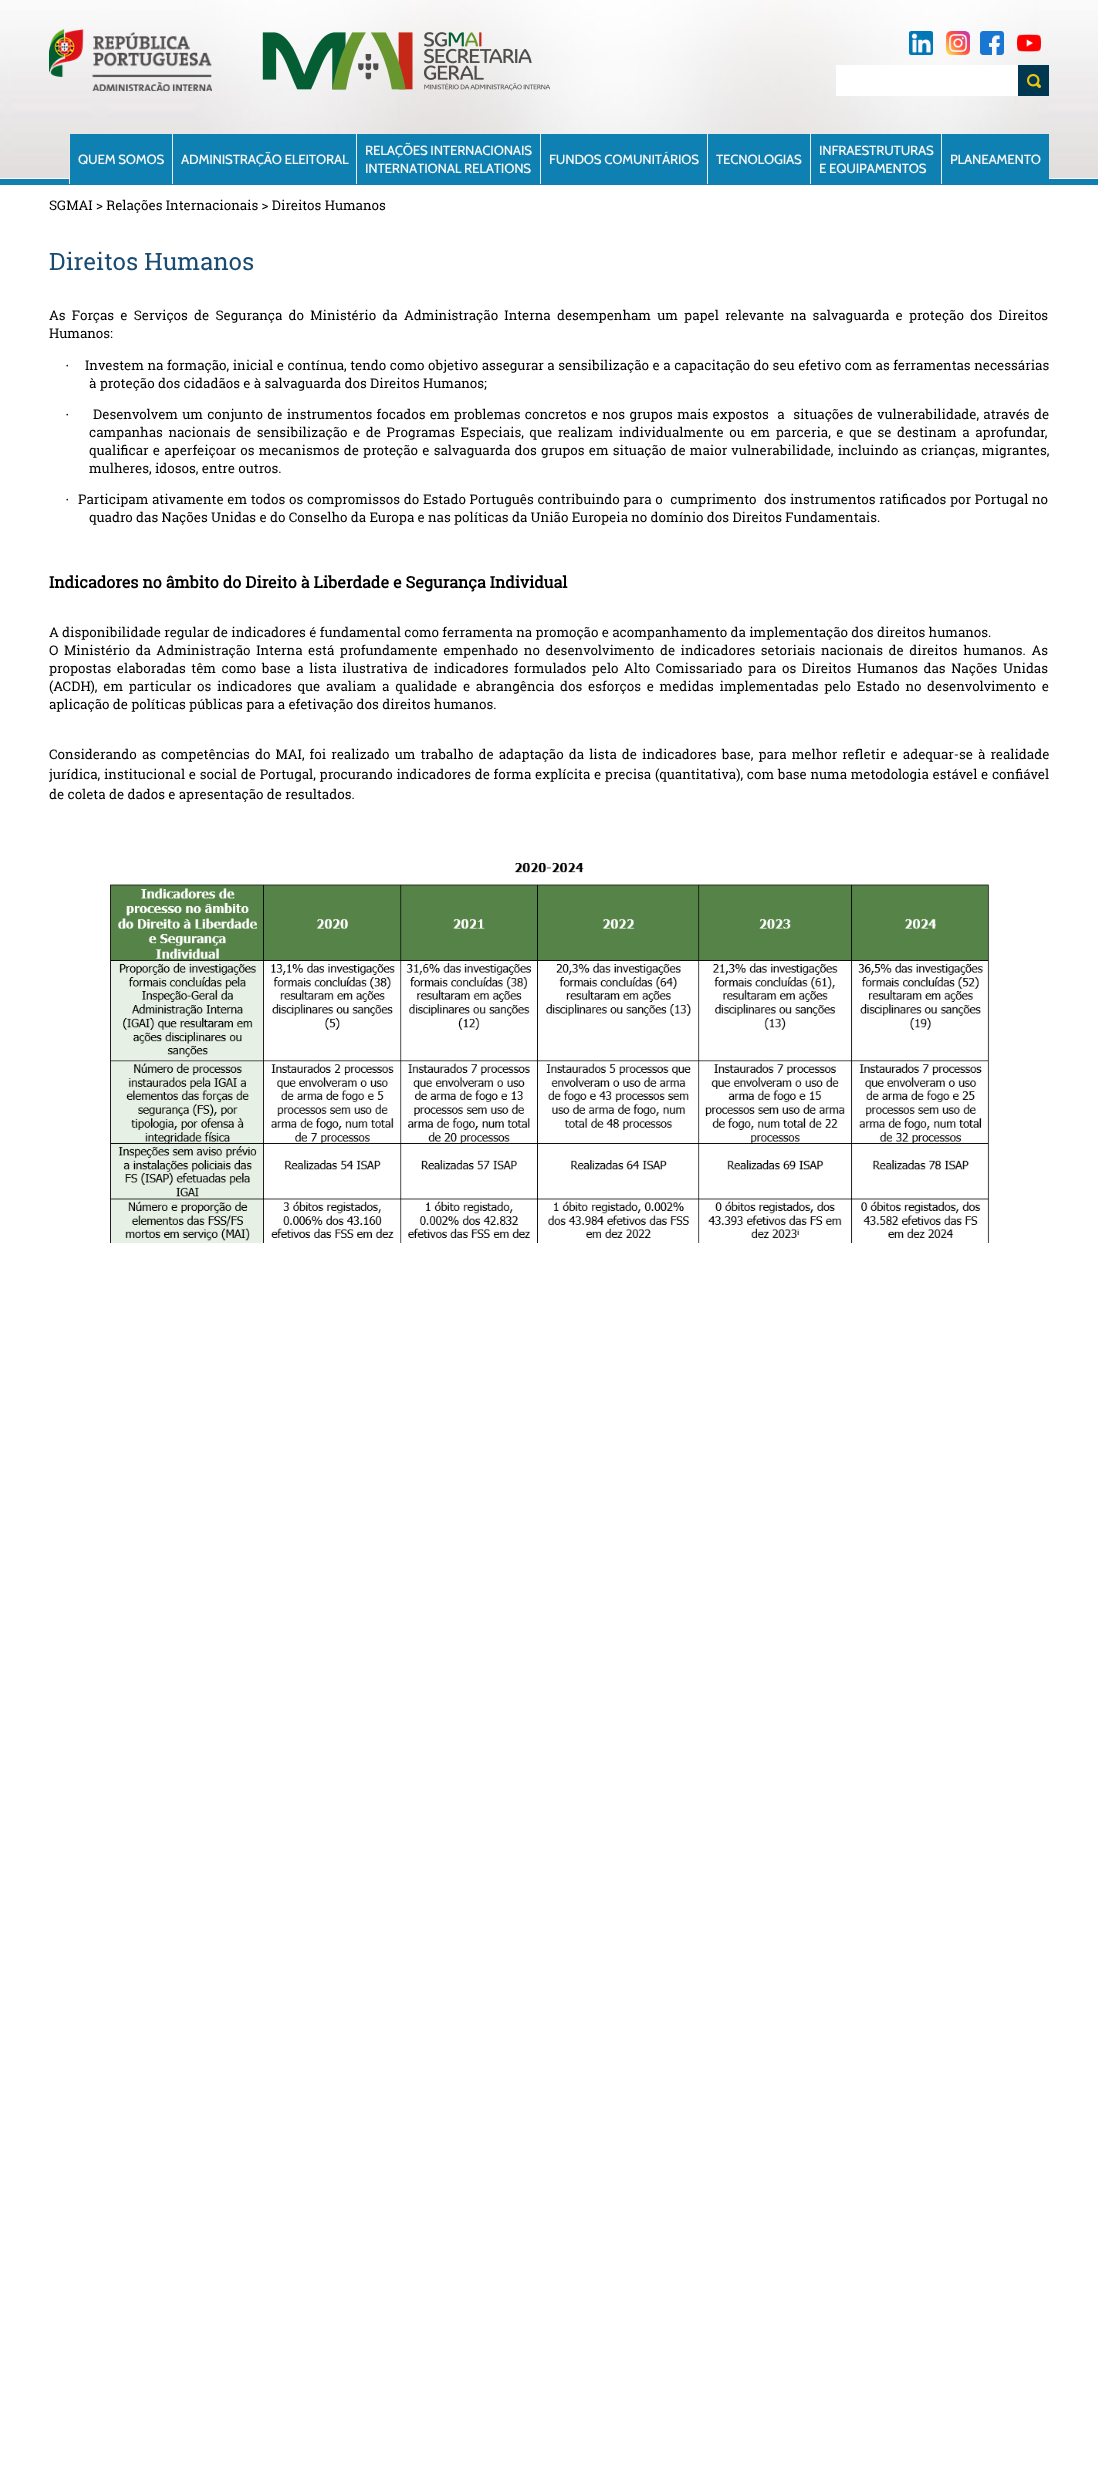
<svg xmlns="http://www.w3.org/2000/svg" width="1098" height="2486">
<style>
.a{font:500 13.33px Cabin;letter-spacing:-0.2px;fill:#f6f6f6}
.b{font:13.33px Roboto Slab;fill:#000}
.c{font:24px Roboto Slab;fill:#194b72}
.d{font:13.33px Liberation Serif;fill:#000}
.e{font:bold 16px Roboto Slab;fill:#000}
</style>
<rect width="100%" height="100%" fill="#fff"/>
<image href="1.png" x="0" y="0" width="1098" height="178"/>
<path fill="#0f80b2" d="M0 179h1098v6H0z"/>
<image href="2.png" x="49" y="29" width="163" height="62"/>
<image href="3.png" x="262" y="32" width="288" height="59"/>
<image href="4.png" x="909" y="31" width="24" height="24"/>
<image href="5.png" x="946" y="31" width="24" height="24"/>
<image href="6.png" x="980" y="31" width="24" height="24"/>
<image href="7.png" x="1017" y="34" width="24" height="18"/>
<path fill="#fff" d="M836 65h182v31H836z"/>
<image href="8.png" x="1018" y="65" width="31" height="31"/>
<path fill="#0f80b2" d="M70 134h102v45H70z"/>
<path fill="#e8e8e8" d="M69 134h1v50H69z"/>
<path fill="#0f80b2" d="M173 134h183v45H173z"/>
<path fill="#e8e8e8" d="M172 134h1v50H172z"/>
<path fill="#0f80b2" d="M357 134h183v45H357z"/>
<path fill="#e8e8e8" d="M356 134h1v50H356z"/>
<path fill="#0f80b2" d="M541 134h166v45H541z"/>
<path fill="#e8e8e8" d="M540 134h1v50H540z"/>
<path fill="#0f80b2" d="M708 134h102v45H708z"/>
<path fill="#e8e8e8" d="M707 134h1v50H707z"/>
<path fill="#0f80b2" d="M811 134h130v45H811z"/>
<path fill="#e8e8e8" d="M810 134h1v50H810z"/>
<path fill="#0f80b2" d="M942 134h107v45H942z"/>
<path fill="#e8e8e8" d="M941 134h1v50H941z"/>
<image href="9.png" x="110" y="863" width="880" height="380"/>
<text class="a" x="78" y="164">QUEM SOMOS</text>
<text class="a" x="181" y="164">ADMINISTRAÇÃO ELEITORAL</text>
<text class="a" x="365" y="155">RELAÇÕES INTERNACIONAIS</text>
<text class="a" x="365" y="173">INTERNATIONAL RELATIONS</text>
<text class="a" x="549" y="164">FUNDOS COMUNITÁRIOS</text>
<text class="a" x="716" y="164">TECNOLOGIAS</text>
<text class="a" x="819" y="155">INFRAESTRUTURAS</text>
<text class="a" x="819" y="173">E EQUIPAMENTOS</text>
<text class="a" x="950" y="164">PLANEAMENTO</text>
<text class="b" x="49" y="210">SGMAI &gt; Relações Internacionais &gt; Direitos Humanos</text>
<text class="c" x="49" y="270">Direitos Humanos</text>
<text class="b" x="49" y="320" word-spacing="2.9">As Forças e Serviços de Segurança do Ministério da Administração Interna desempenham um papel relevante na salvaguarda e proteção dos Direitos</text>
<text class="b" x="49" y="338">Humanos:</text>
<text class="d" x="65" y="370">·</text>
<text class="b" x="85" y="370" word-spacing="0.25">Investem na formação, inicial e contínua, tendo como objetivo assegurar a sensibilização e a capacitação do seu efetivo com as ferramentas necessárias</text>
<text class="b" x="89" y="388">à proteção dos cidadãos e à salvaguarda dos Direitos Humanos;</text>
<text class="d" x="65" y="419">·</text>
<text class="b" xml:space="preserve" x="93" y="419" word-spacing="0.95">Desenvolvem um conjunto de instrumentos focados em problemas concretos e nos grupos mais expostos  a  situações de vulnerabilidade, através de</text>
<text class="b" x="89" y="437" word-spacing="2.25">campanhas nacionais de sensibilização e de Programas Especiais, que realizam individualmente ou em parceria, e que se destinam a aprofundar,</text>
<text class="b" x="89" y="455" word-spacing="0.9">qualificar e aperfeiçoar os mecanismos de proteção e salvaguarda dos grupos em situação de maior vulnerabilidade, incluindo as crianças, migrantes,</text>
<text class="b" x="89" y="473">mulheres, idosos, entre outros.</text>
<text class="d" x="65" y="504">·</text>
<text class="b" xml:space="preserve" x="78" y="504" word-spacing="0.4">Participam ativamente em todos os compromissos do Estado Português contribuindo para o  cumprimento  dos instrumentos ratificados por Portugal no</text>
<text class="b" x="89" y="522">quadro das Nações Unidas e do Conselho da Europa e nas políticas da União Europeia no domínio dos Direitos Fundamentais.</text>
<text class="e" x="49" y="588">Indicadores no âmbito do Direito à Liberdade e Segurança Individual</text>
<text class="b" x="49" y="637">A disponibilidade regular de indicadores é fundamental como ferramenta na promoção e acompanhamento da implementação dos direitos humanos.</text>
<text class="b" x="49" y="655" word-spacing="2.25">O Ministério da Administração Interna está profundamente empenhado no desenvolvimento de indicadores setoriais nacionais de direitos humanos. As</text>
<text class="b" x="49" y="673" word-spacing="2.25">propostas elaboradas têm como base a lista ilustrativa de indicadores formulados pelo Alto Comissariado para os Direitos Humanos das Nações Unidas</text>
<text class="b" x="49" y="691" word-spacing="2.4">(ACDH), em particular os indicadores que avaliam a qualidade e abrangência dos esforços e medidas implementadas pelo Estado no desenvolvimento e</text>
<text class="b" x="49" y="709">aplicação de políticas públicas para a efetivação dos direitos humanos.</text>
<text class="b" x="49" y="759" word-spacing="1.75">Considerando as competências do MAI, foi realizado um trabalho de adaptação da lista de indicadores base, para melhor refletir e adequar-se à realidade</text>
<text class="b" x="49" y="779" word-spacing="0.4">jurídica, institucional e social de Portugal, procurando indicadores de forma explícita e precisa (quantitativa), com base numa metodologia estável e confiável</text>
<text class="b" x="49" y="799">de coleta de dados e apresentação de resultados.</text>
</svg>
